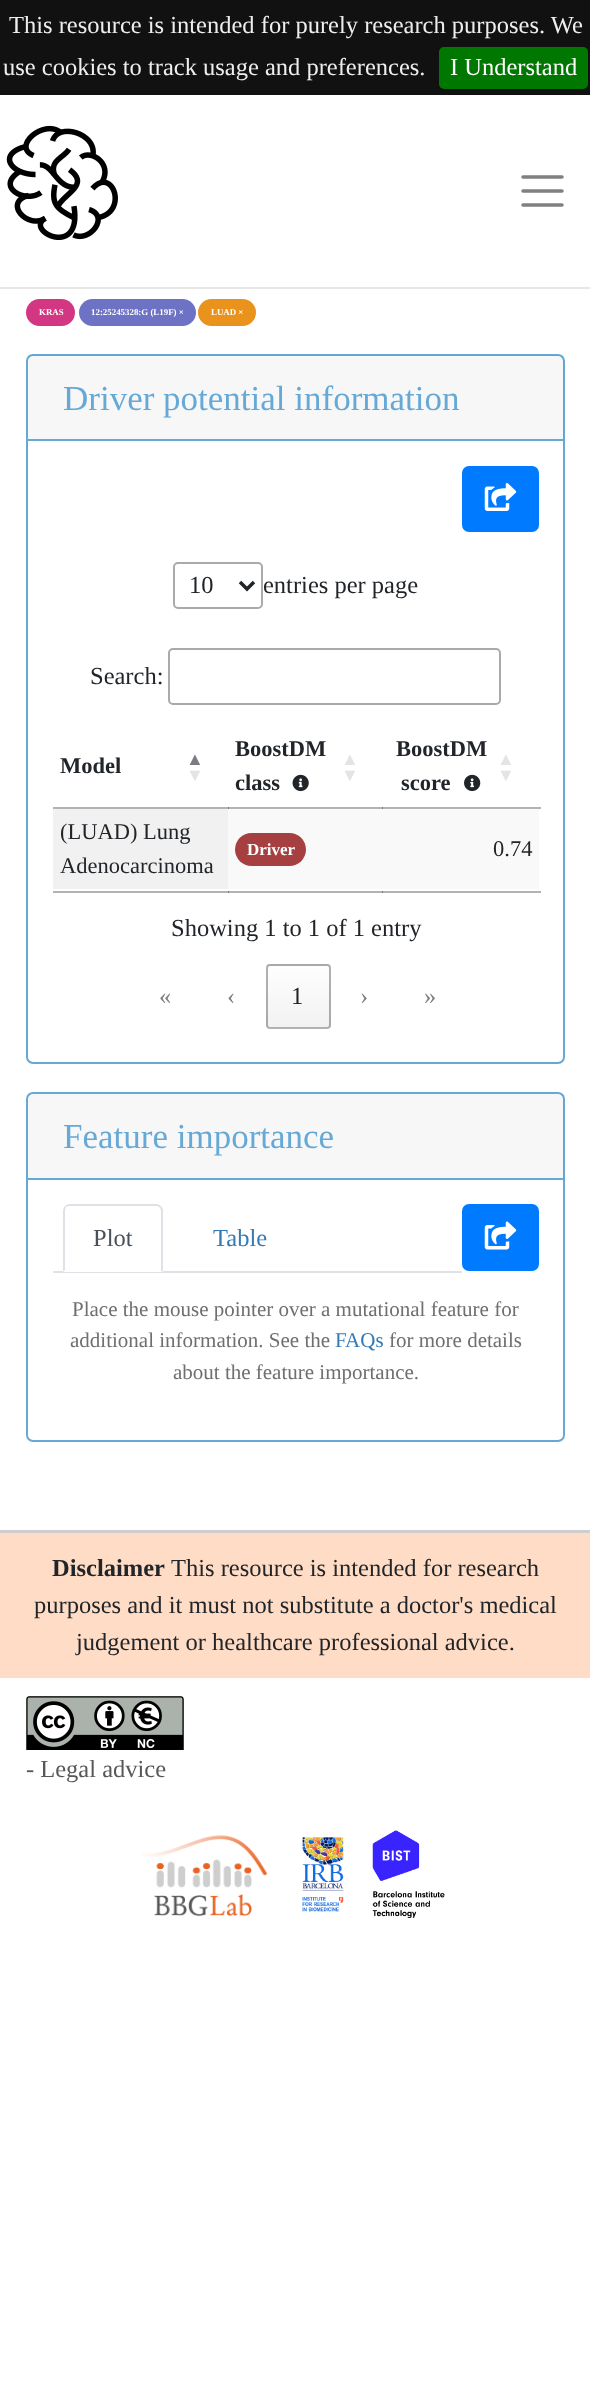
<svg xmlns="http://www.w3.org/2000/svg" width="590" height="2402">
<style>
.a{font:24.5px Liberation Serif;fill:#eee}
.b{font:24.5px Liberation Serif;fill:#fff}
.c{font:bold 8.9px Liberation Serif;fill:#fff}
.d{font:35px Liberation Serif;fill:#67a9d6}
.e{font:24.5px Liberation Serif;fill:#212529}
.f{font:bold 22.5px Liberation Serif;fill:#212529}
.g{font:bold 18px Liberation Serif;fill:#7a7c7f}
.h{font:bold 18px Liberation Serif;fill:#e3e4e4}
.i{font:22.5px Liberation Serif;fill:#212529}
.j{font:bold 17px Liberation Serif;fill:#fff}
.k{font:24.5px Liberation Serif;fill:#808080}
.l{font:24.5px Liberation Serif;fill:#495057}
.m{font:24.5px Liberation Serif;fill:#337ab7}
.n{font:21px Liberation Serif;fill:#6f6f6f}
.o{font:21px Liberation Serif;fill:#337ab7}
.p{font:bold 24.5px Liberation Serif;fill:#212529}
.q{font:24.5px Liberation Serif;fill:#575756}
</style>
<defs>
<clipPath id="clip1"><rect x="266" y="964" width="65" height="65" rx="4"/></clipPath>
<linearGradient id="g1" gradientUnits="userSpaceOnUse" x1="298" y1="905" x2="298" y2="966"><stop offset="0" stop-color="#fefefe"/><stop offset="1" stop-color="#f2f2f2"/></linearGradient>
<linearGradient id="g2" gradientUnits="userSpaceOnUse" x1="298" y1="966" x2="298" y2="1027"><stop offset="0" stop-color="#fefefe"/><stop offset="1" stop-color="#f2f2f2"/></linearGradient>
</defs>
<rect width="100%" height="100%" fill="#fff"/>
<path fill="#b3b3b3" d="M53 807h330v2H53z"/>
<path fill="#7d7d7d" d="M228 807h1v2H228z"/>
<path fill="#b3b3b3" d="M53 891h330v2H53z"/>
<path fill="#7d7d7d" d="M228 891h1v2H228z"/>
<path fill="#111" d="M0 0h590v95H0z"/>
<rect fill="#070" x="439" y="47" width="149" height="42" rx="5"/>
<path fill="#e7e7e7" d="M0 287h590v2H0z"/>
<image href="1.png" x="6" y="125" width="112" height="116"/>
<path fill="none" stroke="#808080" stroke-width="3.5" stroke-linecap="round" d="M523 177h39m-39 14h39m-39 14h39"/>
<rect fill="#d33682" x="26" y="299" width="49" height="27" rx="13.5"/>
<rect fill="#6d72c5" x="79" y="299" width="117" height="27" rx="13.5"/>
<rect fill="#e9931c" x="198" y="299" width="58" height="27" rx="13.5"/>
<rect fill="none" stroke="#67a9d6" stroke-width="2" x="27" y="355" width="537" height="708" rx="6"/>
<path fill="#00000008" d="M28 355h536v84H28z"/>
<path fill="#67a9d6" d="M28 439h536v2H28z"/>
<rect fill="#007bff" stroke="#007bff" stroke-width="2" x="463" y="467" width="75" height="64" rx="6"/>
<image href="2.png" x="484" y="483" width="33" height="28"/>
<rect fill="none" stroke="#aaa" stroke-width="2" x="174" y="563" width="88" height="45" rx="4"/>
<path fill="none" stroke="#212529" stroke-width="3.5" d="M240 582l7 7l7-7"/>
<rect fill="none" stroke="#aaa" stroke-width="2" x="169" y="649" width="331" height="55" rx="4"/>
<image href="3.png" x="292" y="774" width="17" height="18"/>
<path fill="#b3b3b3" d="M382 807h159v2H382z"/>
<path fill="#7d7d7d" d="M382 807h1v2H382z"/>
<image href="4.png" x="464" y="774" width="17" height="18"/>
<path fill="#f1f1f1" d="M53 809h175v80H53z"/>
<path fill="#f9f9f9" d="M228 809h311v80H228z"/>
<rect fill="#a64040" x="235" y="833" width="71" height="33" rx="16.5"/>
<path fill="#b3b3b3" d="M382 891h159v2H382z"/>
<path fill="#7d7d7d" d="M382 891h1v2H382z"/>
<g clip-path="url(#clip1)">
<path fill="url(#g1)" d="M266 964h65v2H266z"/>
<path fill="url(#g2)" d="M266 966h65v61H266z"/>
</g>
<rect fill="none" stroke="#0000004d" stroke-width="2" x="267" y="965" width="63" height="63" rx="3"/>
<rect fill="none" stroke="#67a9d6" stroke-width="2" x="27" y="1093" width="537" height="348" rx="6"/>
<path fill="#00000008" d="M28 1094h536v84H28z"/>
<path fill="#67a9d6" d="M28 1178h536v2H28z"/>
<path fill="#dee2e6" d="M53 1271h409v2H53z"/>
<path fill="#fff" d="M70 1204h86c4 0 7 3 7 7v61h-100v-61c0-4 3-7 7-7z"/>
<path fill="#dee2e6" d="M70 1204c-2 0-4 1-5 2l1 1l3-1h88l2 1l2-1c-1-1-3-2-5-2z"/>
<path fill="#dee2e6" d="M163 1272l-3-2h1v-59c0-2-1-3-2-4l2-1l2 3z"/>
<path fill="#fff" d="M162 1272h-99l2-2h95z"/>
<path fill="#dee2e6" d="M63 1211v61l2-2v-59c0-1 1-3 1-4l-1-1c-1 1-2 3-2 5z"/>
<rect fill="#007bff" stroke="#007bff" stroke-width="2" x="463" y="1205" width="75" height="65" rx="6"/>
<image href="5.png" x="484" y="1221" width="33" height="29"/>
<path fill="#cecece" d="M0 1530h590v3H0z"/>
<path fill="#ffdcc5" d="M0 1533h590v145H0z"/>
<image href="6.png" x="26" y="1696" width="158" height="54"/>
<image href="7.png" x="141" y="1835" width="127" height="82"/>
<image href="8.png" x="302" y="1837" width="42" height="75"/>
<image href="9.png" x="372" y="1830" width="73" height="88"/>
<text class="a" x="9" y="33">This resource is intended for purely research purposes. We</text>
<text class="a" x="3" y="75">use cookies to track usage and preferences.</text>
<text class="b" x="450" y="75">I Understand</text>
<text class="c" x="39" y="315">KRAS</text>
<text class="c" x="91" y="315">12:25245328:G (L19F) ×</text>
<text class="c" x="211" y="315">LUAD ×</text>
<text class="d" x="63" y="410">Driver potential information</text>
<text class="e" x="189" y="593">10</text>
<text class="e" x="263" y="593">entries per page</text>
<text class="e" x="90" y="684">Search:</text>
<text class="f" x="60" y="773">Model</text>
<text class="g" x="186" y="765">▲</text>
<text class="h" x="186" y="781">▼</text>
<text class="f" x="235" y="756">BoostDM</text>
<text class="f" x="235" y="790">class</text>
<text class="h" x="341" y="765">▲</text>
<text class="h" x="341" y="781">▼</text>
<text class="f" x="396" y="756">BoostDM</text>
<text class="f" x="401" y="790">score</text>
<text class="h" x="497" y="765">▲</text>
<text class="h" x="497" y="781">▼</text>
<text class="i" x="60" y="839">(LUAD) Lung</text>
<text class="i" x="60" y="873">Adenocarcinoma</text>
<text class="j" x="247" y="855">Driver</text>
<text class="i" x="493" y="856">0.74</text>
<text class="e" x="171" y="936">Showing 1 to 1 of 1 entry</text>
<text class="k" x="159" y="1004">«</text>
<text class="k" x="227" y="1004">‹</text>
<text class="e" x="291" y="1004">1</text>
<text class="k" x="360" y="1004">›</text>
<text class="k" x="424" y="1004">»</text>
<text class="d" x="63" y="1148">Feature importance</text>
<text class="l" x="93" y="1246">Plot</text>
<text class="m" x="213" y="1246">Table</text>
<text class="n" x="72" y="1316">Place the mouse pointer over a mutational feature for</text>
<text class="n" x="70" y="1347">additional information. See the</text>
<text class="o" x="335" y="1347">FAQs</text>
<text class="n" x="389" y="1347">for more details</text>
<text class="n" x="173" y="1379">about the feature importance.</text>
<text class="p" x="52" y="1576">Disclaimer</text>
<text class="e" x="171" y="1576">This resource is intended for research</text>
<text class="e" x="34" y="1613">purposes and it must not substitute a doctor's medical</text>
<text class="e" x="76" y="1650">judgement or healthcare professional advice.</text>
<text class="q" x="26" y="1777">- Legal advice</text>
</svg>
